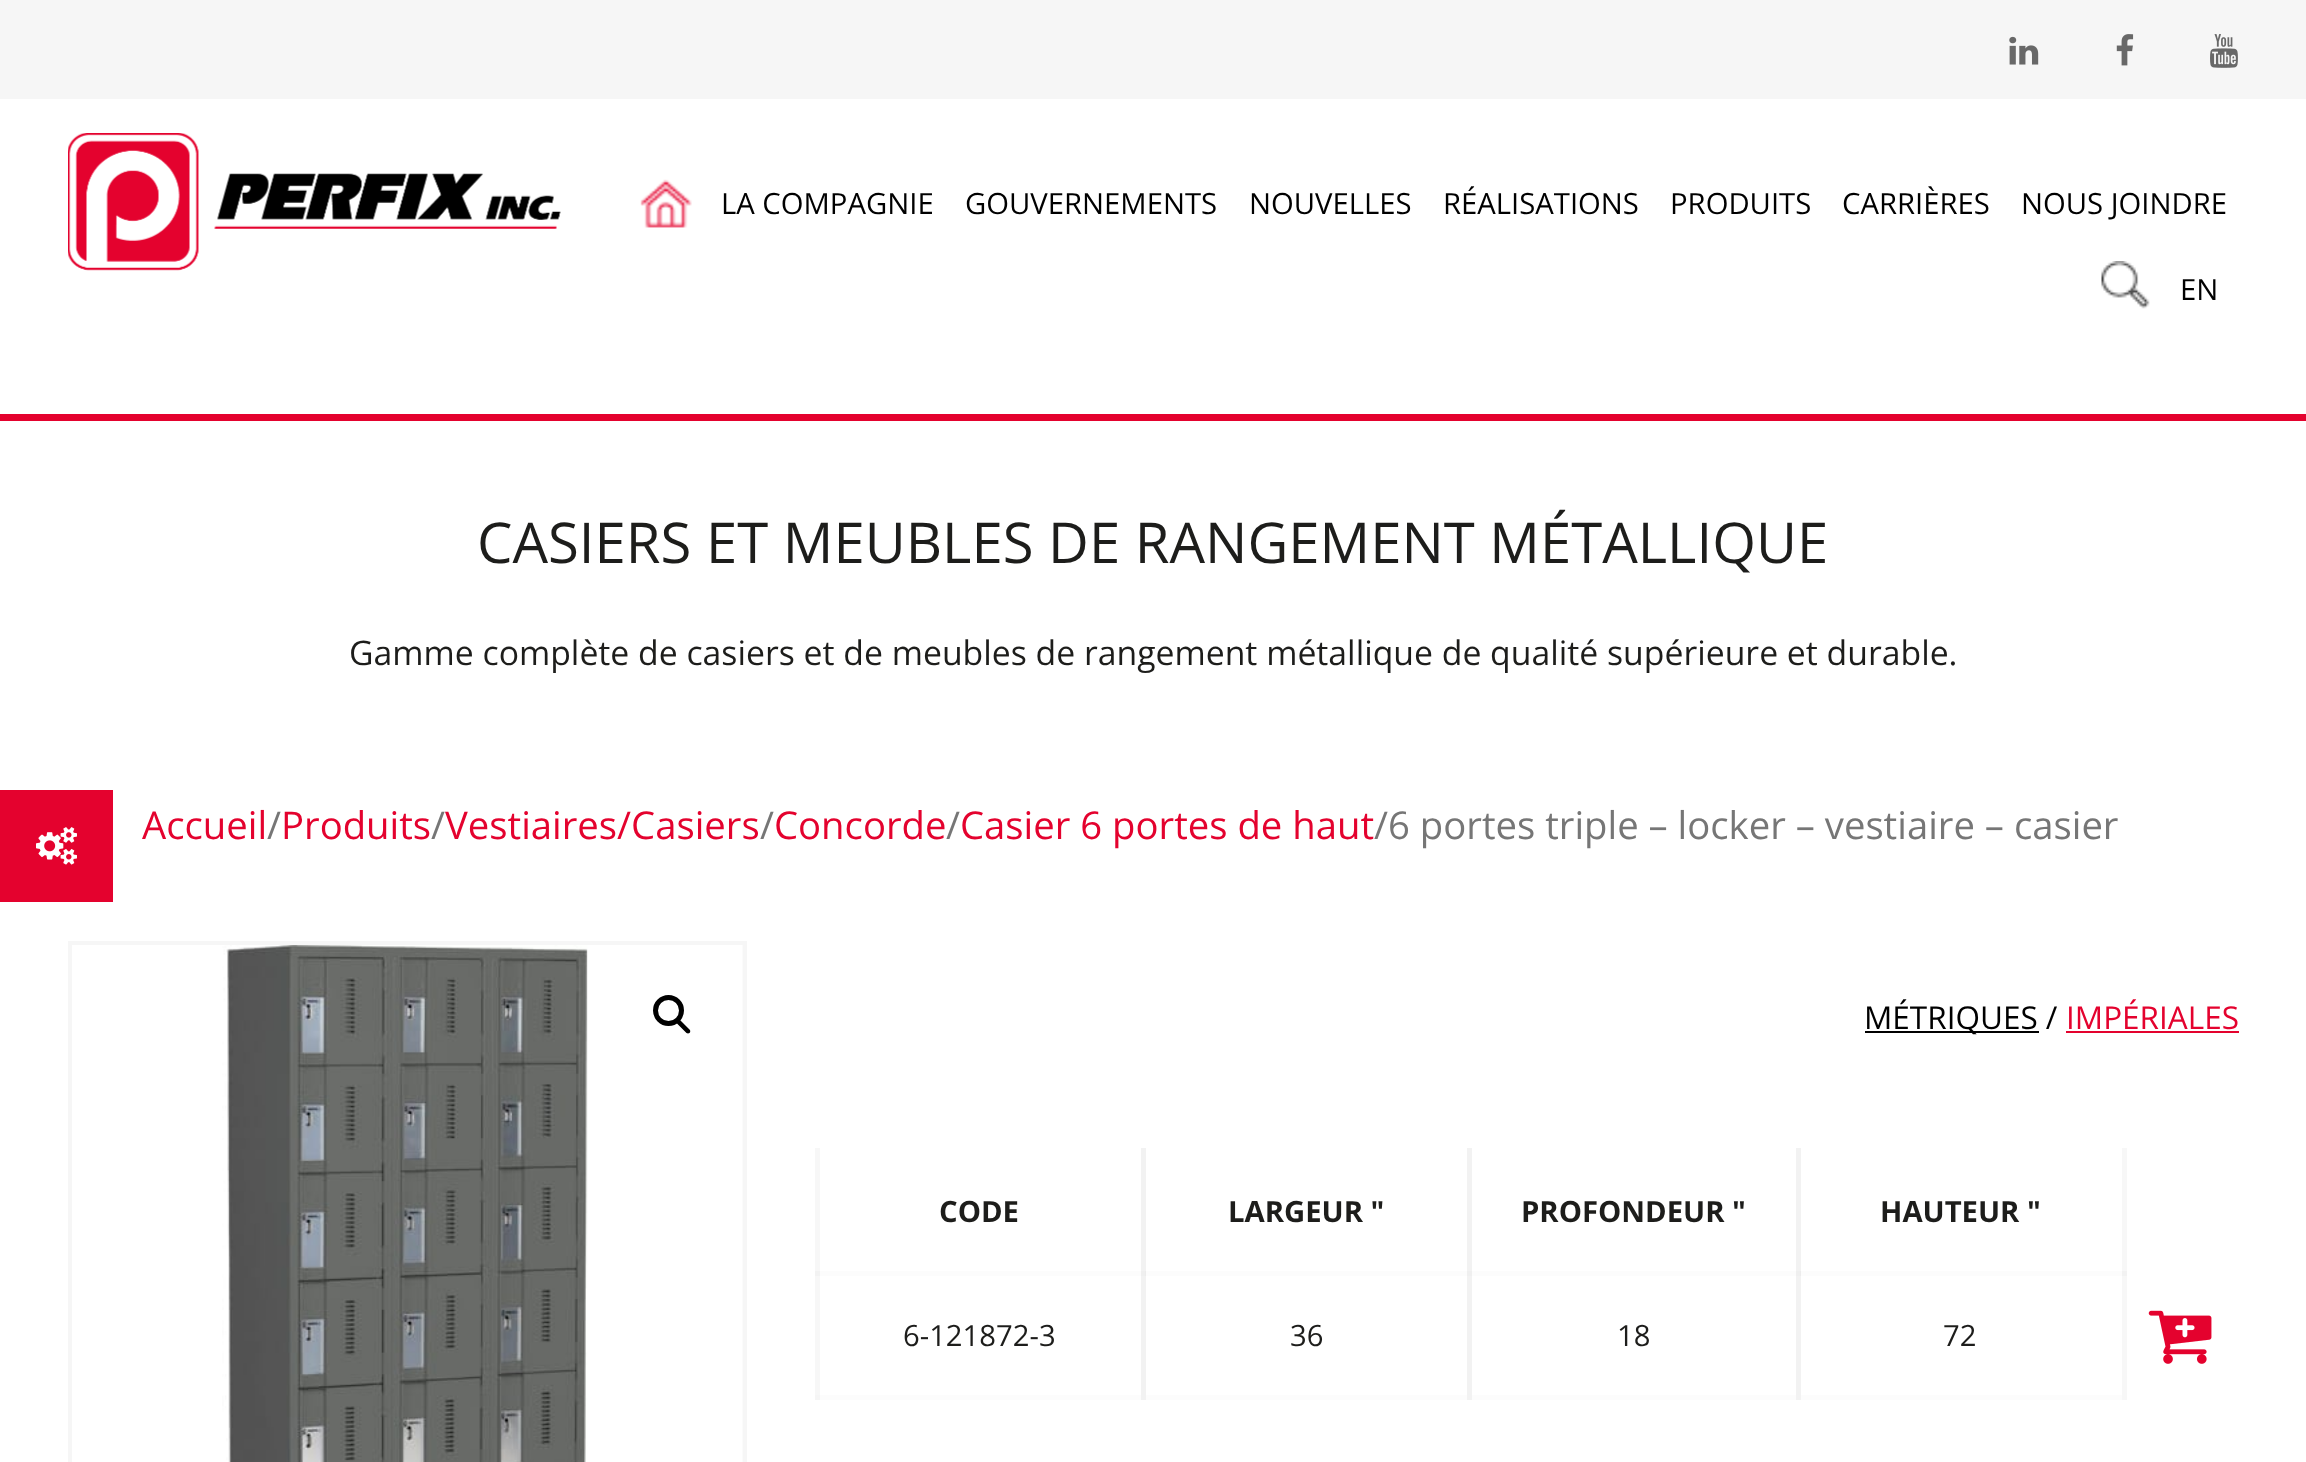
<svg xmlns="http://www.w3.org/2000/svg" width="2306" height="1462">
<style>
.a{font:29.25px Open Sans;fill:#000}
.b{font:56.25px Open Sans;fill:#1d1d1b}
.c{font:33.75px Open Sans;fill:#1d1d1b}
.d{font:38.25px Open Sans;fill:#e4022e}
.e{font:38.25px Open Sans;fill:#767676}
.f{font:31.5px Open Sans;fill:#000}
.g{font:31.5px Open Sans;fill:#e4022e}
.h{font:bold 29.25px Open Sans;fill:#1d1d1b}
.i{font:29.25px Open Sans;fill:#1d1d1b}
</style>
<rect width="100%" height="100%" fill="#fff"/>
<path fill="#f7f7f7" d="M815 1148h5v128H815z"/>
<path fill="#fcfcfc" d="M815 1271h330v5H815z"/>
<path fill="#f2f2f2" d="M1141 1148h5v128H1141z"/>
<path fill="#fcfcfc" d="M1141 1271h331v5H1141z"/>
<path fill="#f2f2f2" d="M1467 1148h5v128H1467z"/>
<path fill="#fcfcfc" d="M1467 1271h333v5H1467z"/>
<path fill="#f2f2f2" d="M1796 1148h5v128H1796z"/>
<path fill="#fcfcfc" d="M1796 1271h330v5H1796z"/>
<path fill="#f7f7f7" d="M2122 1148h5v128H2122z"/>
<path fill="#f7f7f7" d="M815 1271h5v129H815z"/>
<path fill="#f2f2f2" d="M815 1271h5v5H815z"/>
<path fill="#fcfcfc" d="M815 1395h1311v5H815z"/>
<path fill="#f5f5f5" d="M815 1395h5v5H815z"/>
<path fill="#f6f6f6" d="M0 0h2306v99H0z"/>
<image href="1.png" x="2009" y="36" width="30" height="29"/>
<image href="2.png" x="2116" y="34" width="18" height="32"/>
<image href="3.png" x="2210" y="34" width="28" height="34"/>
<image href="4.png" x="68" y="133" width="493" height="138"/>
<image href="5.png" x="640" y="179" width="52" height="49"/>
<image href="6.png" x="2101" y="261" width="49" height="48"/>
<path fill="#e4022e" d="M0 414h2306v7H0z"/>
<path fill="#e4022e" d="M0 790h113v112H0z"/>
<image href="7.png" x="36" y="827" width="41" height="38"/>
<path fill="none" stroke="#f6f6f6" stroke-width="5" d="M70.5 943.5h674v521H70.5z"/>
<image href="8.png" x="72" y="945" width="671" height="517"/>
<circle fill="none" stroke="#000" stroke-width="5" cx="668.5" cy="1010.5" r="13"/>
<path fill="#000" d="M677 1020c.5-1 2-1 3 0l9.5 9.5c1 1 1 2.5 0 3.5c-1 .5-2 .5-3 0l-9.5-9.5c-1-1-1-2.5 0-3.5z"/>
<path fill="#000" d="M1865 1031h174v2H1865z"/>
<path fill="#e4022e" d="M2066 1031h173v2H2066z"/>
<path fill="#f2f2f2" d="M1141 1271h5v129H1141z"/>
<path fill="#ececec" d="M1141 1271h5v5H1141z"/>
<path fill="#efefef" d="M1141 1271h4v5H1141z"/>
<path fill="#f2f2f2" d="M1467 1271h5v129H1467z"/>
<path fill="#efefef" d="M1467 1271h5v5H1467z"/>
<path fill="#f2f2f2" d="M1796 1271h5v129H1796z"/>
<path fill="#ececec" d="M1796 1271h5v5H1796z"/>
<path fill="#efefef" d="M1796 1271h4v5H1796z"/>
<path fill="#f7f7f7" d="M2122 1271h5v129H2122z"/>
<path fill="#f2f2f2" d="M2122 1271h5v5H2122z"/>
<image href="9.png" x="2148" y="1310" width="64" height="54"/>
<text class="a" x="721" y="214">LA COMPAGNIE</text>
<text class="a" x="965" y="214">GOUVERNEMENTS</text>
<text class="a" x="1249" y="214">NOUVELLES</text>
<text class="a" x="1443" y="214">RÉALISATIONS</text>
<text class="a" x="1670" y="214">PRODUITS</text>
<text class="a" x="1842" y="214">CARRIÈRES</text>
<text class="a" x="2021" y="214">NOUS JOINDRE</text>
<text class="a" x="2180" y="300">EN</text>
<text class="b" x="477" y="563">CASIERS ET MEUBLES DE RANGEMENT MÉTALLIQUE</text>
<text class="c" x="349" y="665">Gamme complète de casiers et de meubles de rangement métallique de qualité supérieure et durable.</text>
<text class="d" x="142" y="839">Accueil</text>
<text class="e" x="267" y="839">/</text>
<text class="d" x="281" y="839">Produits</text>
<text class="e" x="431" y="839">/</text>
<text class="d" x="445" y="839">Vestiaires/Casiers</text>
<text class="e" x="760" y="839">/</text>
<text class="d" x="774" y="839">Concorde</text>
<text class="e" x="946" y="839">/</text>
<text class="d" x="960" y="839">Casier 6 portes de haut</text>
<text class="e" x="1374" y="839">/6 portes triple – locker – vestiaire – casier</text>
<text class="f" x="1864" y="1029">MÉTRIQUES /</text>
<text class="g" x="2066" y="1029">IMPÉRIALES</text>
<text class="h" x="939" y="1222">CODE</text>
<text class="h" x="1228" y="1222">LARGEUR "</text>
<text class="h" x="1521" y="1222">PROFONDEUR "</text>
<text class="h" x="1880" y="1222">HAUTEUR "</text>
<text class="i" x="903" y="1346">6-121872-3</text>
<text class="i" x="1290" y="1346">36</text>
<text class="i" x="1617" y="1346">18</text>
<text class="i" x="1943" y="1346">72</text>
</svg>
